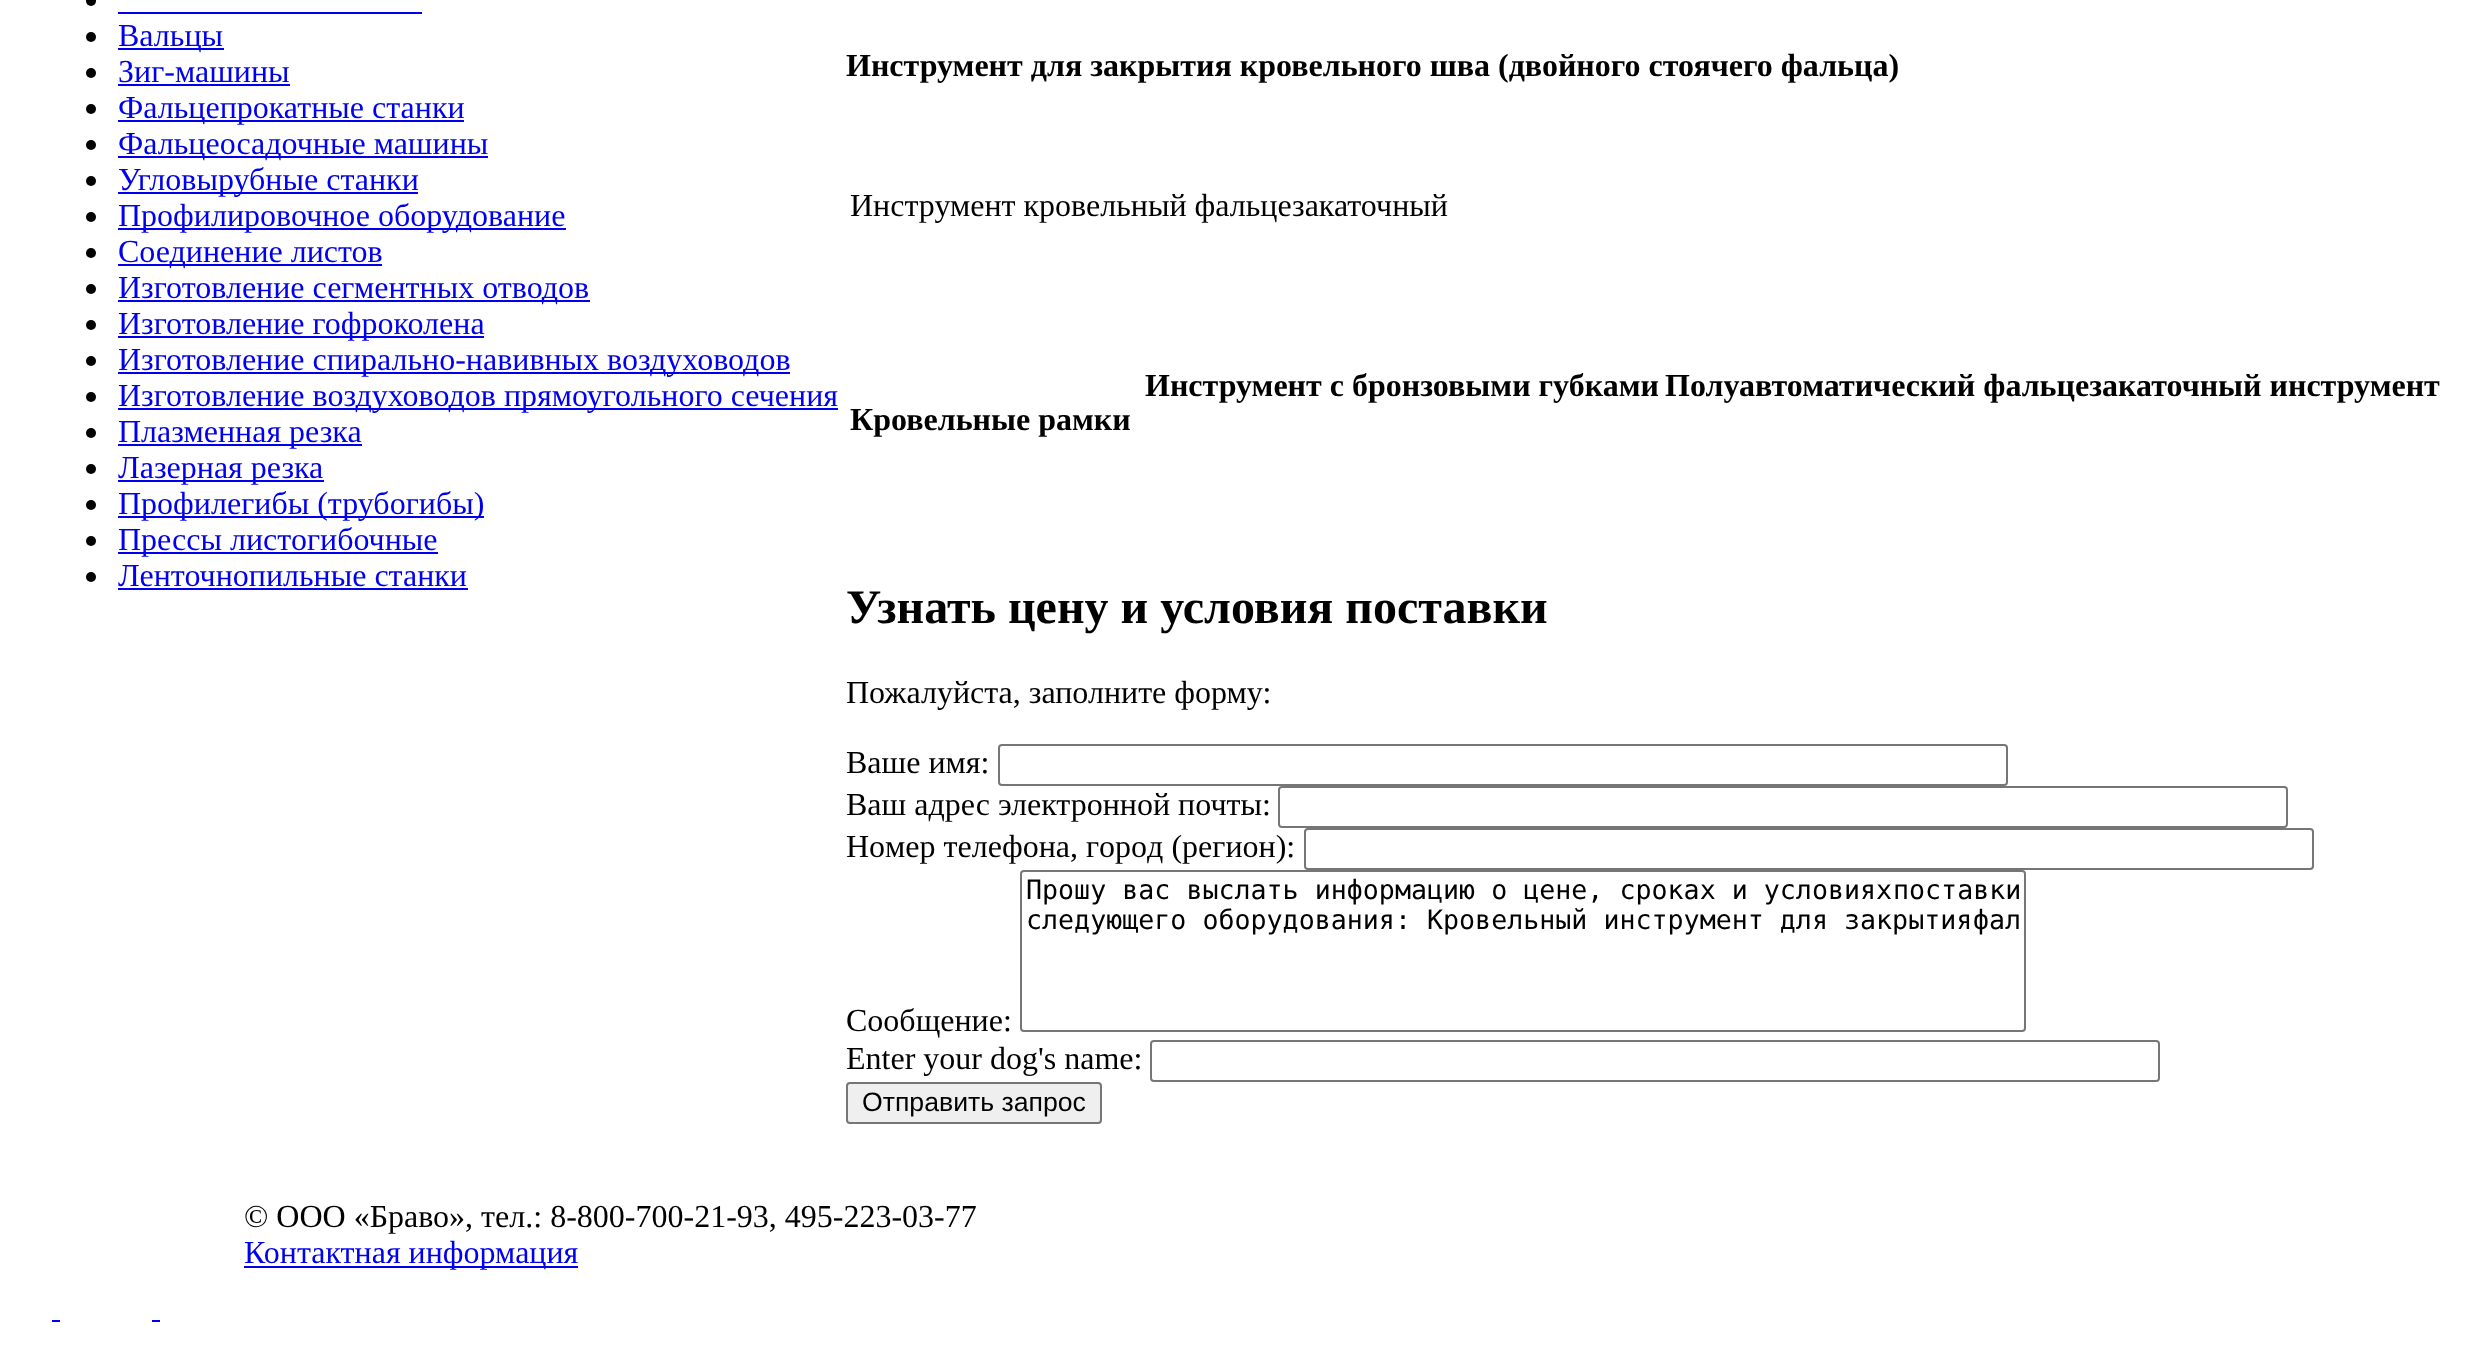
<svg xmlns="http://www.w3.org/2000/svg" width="2482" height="1345">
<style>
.a{font:32px Liberation Serif;fill:#00e}
.b{font:bold 32px Liberation Serif;fill:#000}
.c{font:32px Liberation Serif;fill:#000}
.d{font:bold 48px Liberation Serif;fill:#000}
.e{font:26.65px DejaVu Sans Mono;fill:#000}
.f{font:26.65px Liberation Sans;fill:#000}
</style>
<rect width="100%" height="100%" fill="#fff"/>
<circle fill="#000" cx="91" cy="1" r="5"/>
<path fill="#00e" d="M118 12h304v2H118z"/>
<circle fill="#000" cx="91" cy="37" r="5"/>
<path fill="#00e" d="M118 48h106v2H118z"/>
<circle fill="#000" cx="91" cy="73" r="5"/>
<path fill="#00e" d="M118 84h172v2H118z"/>
<circle fill="#000" cx="91" cy="109" r="5"/>
<path fill="#00e" d="M118 120h346v2H118z"/>
<circle fill="#000" cx="91" cy="145" r="5"/>
<path fill="#00e" d="M118 156h370v2H118z"/>
<circle fill="#000" cx="91" cy="181" r="5"/>
<path fill="#00e" d="M118 192h300v2H118z"/>
<circle fill="#000" cx="91" cy="217" r="5"/>
<path fill="#00e" d="M118 228h448v2H118z"/>
<circle fill="#000" cx="91" cy="253" r="5"/>
<path fill="#00e" d="M118 264h264v2H118z"/>
<circle fill="#000" cx="91" cy="289" r="5"/>
<path fill="#00e" d="M118 300h472v2H118z"/>
<circle fill="#000" cx="91" cy="325" r="5"/>
<path fill="#00e" d="M118 336h366v2H118z"/>
<circle fill="#000" cx="91" cy="361" r="5"/>
<path fill="#00e" d="M118 372h672v2H118z"/>
<circle fill="#000" cx="91" cy="397" r="5"/>
<path fill="#00e" d="M118 408h720v2H118z"/>
<circle fill="#000" cx="91" cy="433" r="5"/>
<path fill="#00e" d="M118 444h244v2H118z"/>
<circle fill="#000" cx="91" cy="469" r="5"/>
<path fill="#00e" d="M118 480h206v2H118z"/>
<circle fill="#000" cx="91" cy="505" r="5"/>
<path fill="#00e" d="M118 516h366v2H118z"/>
<circle fill="#000" cx="91" cy="541" r="5"/>
<path fill="#00e" d="M118 552h320v2H118z"/>
<circle fill="#000" cx="91" cy="577" r="5"/>
<path fill="#00e" d="M118 588h350v2H118z"/>
<rect fill="none" stroke="#767676" stroke-width="2" x="999" y="745" width="1008" height="40" rx="3"/>
<rect fill="none" stroke="#767676" stroke-width="2" x="1279" y="787" width="1008" height="40" rx="3"/>
<rect fill="none" stroke="#767676" stroke-width="2" x="1305" y="829" width="1008" height="40" rx="3"/>
<rect fill="none" stroke="#767676" stroke-width="2" x="1021" y="871" width="1004" height="160" rx="3"/>
<rect fill="none" stroke="#767676" stroke-width="2" x="1151" y="1041" width="1008" height="40" rx="3"/>
<rect fill="#efefef" stroke="#767676" stroke-width="2" x="847" y="1083" width="254" height="40" rx="3"/>
<path fill="#00e" d="M244 1266h334v2H244z"/>
<path fill="#00e" d="M52 1320h8v2H52z"/>
<path fill="#00e" d="M152 1320h8v2H152z"/>
<text class="a" x="118" y="46">Вальцы</text>
<text class="a" x="118" y="82">Зиг-машины</text>
<text class="a" x="118" y="118">Фальцепрокатные станки</text>
<text class="a" x="118" y="154">Фальцеосадочные машины</text>
<text class="a" x="118" y="190">Угловырубные станки</text>
<text class="a" x="118" y="226">Профилировочное оборудование</text>
<text class="a" x="118" y="262">Соединение листов</text>
<text class="a" x="118" y="298">Изготовление сегментных отводов</text>
<text class="a" x="118" y="334">Изготовление гофроколена</text>
<text class="a" x="118" y="370">Изготовление спирально-навивных воздуховодов</text>
<text class="a" x="118" y="406">Изготовление воздуховодов прямоугольного сечения</text>
<text class="a" x="118" y="442">Плазменная резка</text>
<text class="a" x="118" y="478">Лазерная резка</text>
<text class="a" x="118" y="514">Профилегибы (трубогибы)</text>
<text class="a" x="118" y="550">Прессы листогибочные</text>
<text class="a" x="118" y="586">Ленточнопильные станки</text>
<text class="b" x="846" y="76">Инструмент для закрытия кровельного шва (двойного стоячего фальца)</text>
<text class="c" x="850" y="216">Инструмент кровельный фальцезакаточный</text>
<text class="b" x="1145" y="396">Инструмент с бронзовыми губками</text>
<text class="b" x="1665" y="396">Полуавтоматический фальцезакаточный инструмент</text>
<text class="b" x="850" y="430">Кровельные рамки</text>
<text class="d" x="846" y="623">Узнать цену и условия поставки</text>
<text class="c" x="846" y="703">Пожалуйста, заполните форму:</text>
<text class="c" x="846" y="773">Ваше имя:</text>
<text class="c" x="846" y="815">Ваш адрес электронной почты:</text>
<text class="c" x="846" y="857">Hoмep телeфoна, гopoд (региoн):</text>
<text class="e" x="1026" y="899">Прошу вас выслать информацию о цене, сроках и условиях</text>
<text class="e" x="1893" y="899">поставки</text>
<text class="e" x="1026" y="929">следующего оборудования: Кровельный инструмент для закрытия</text>
<text class="e" x="1973" y="929">фал</text>
<text class="c" x="846" y="1031">Сообщение:</text>
<text class="c" x="846" y="1069">Enter your dog's name:</text>
<text class="f" x="862" y="1111">Отправить запрос</text>
<text class="c" x="244" y="1227">© ООО «Браво», тел.: 8-800-700-21-93, 495-223-03-77</text>
<text class="a" x="244" y="1263">Контактная информация</text>
</svg>
